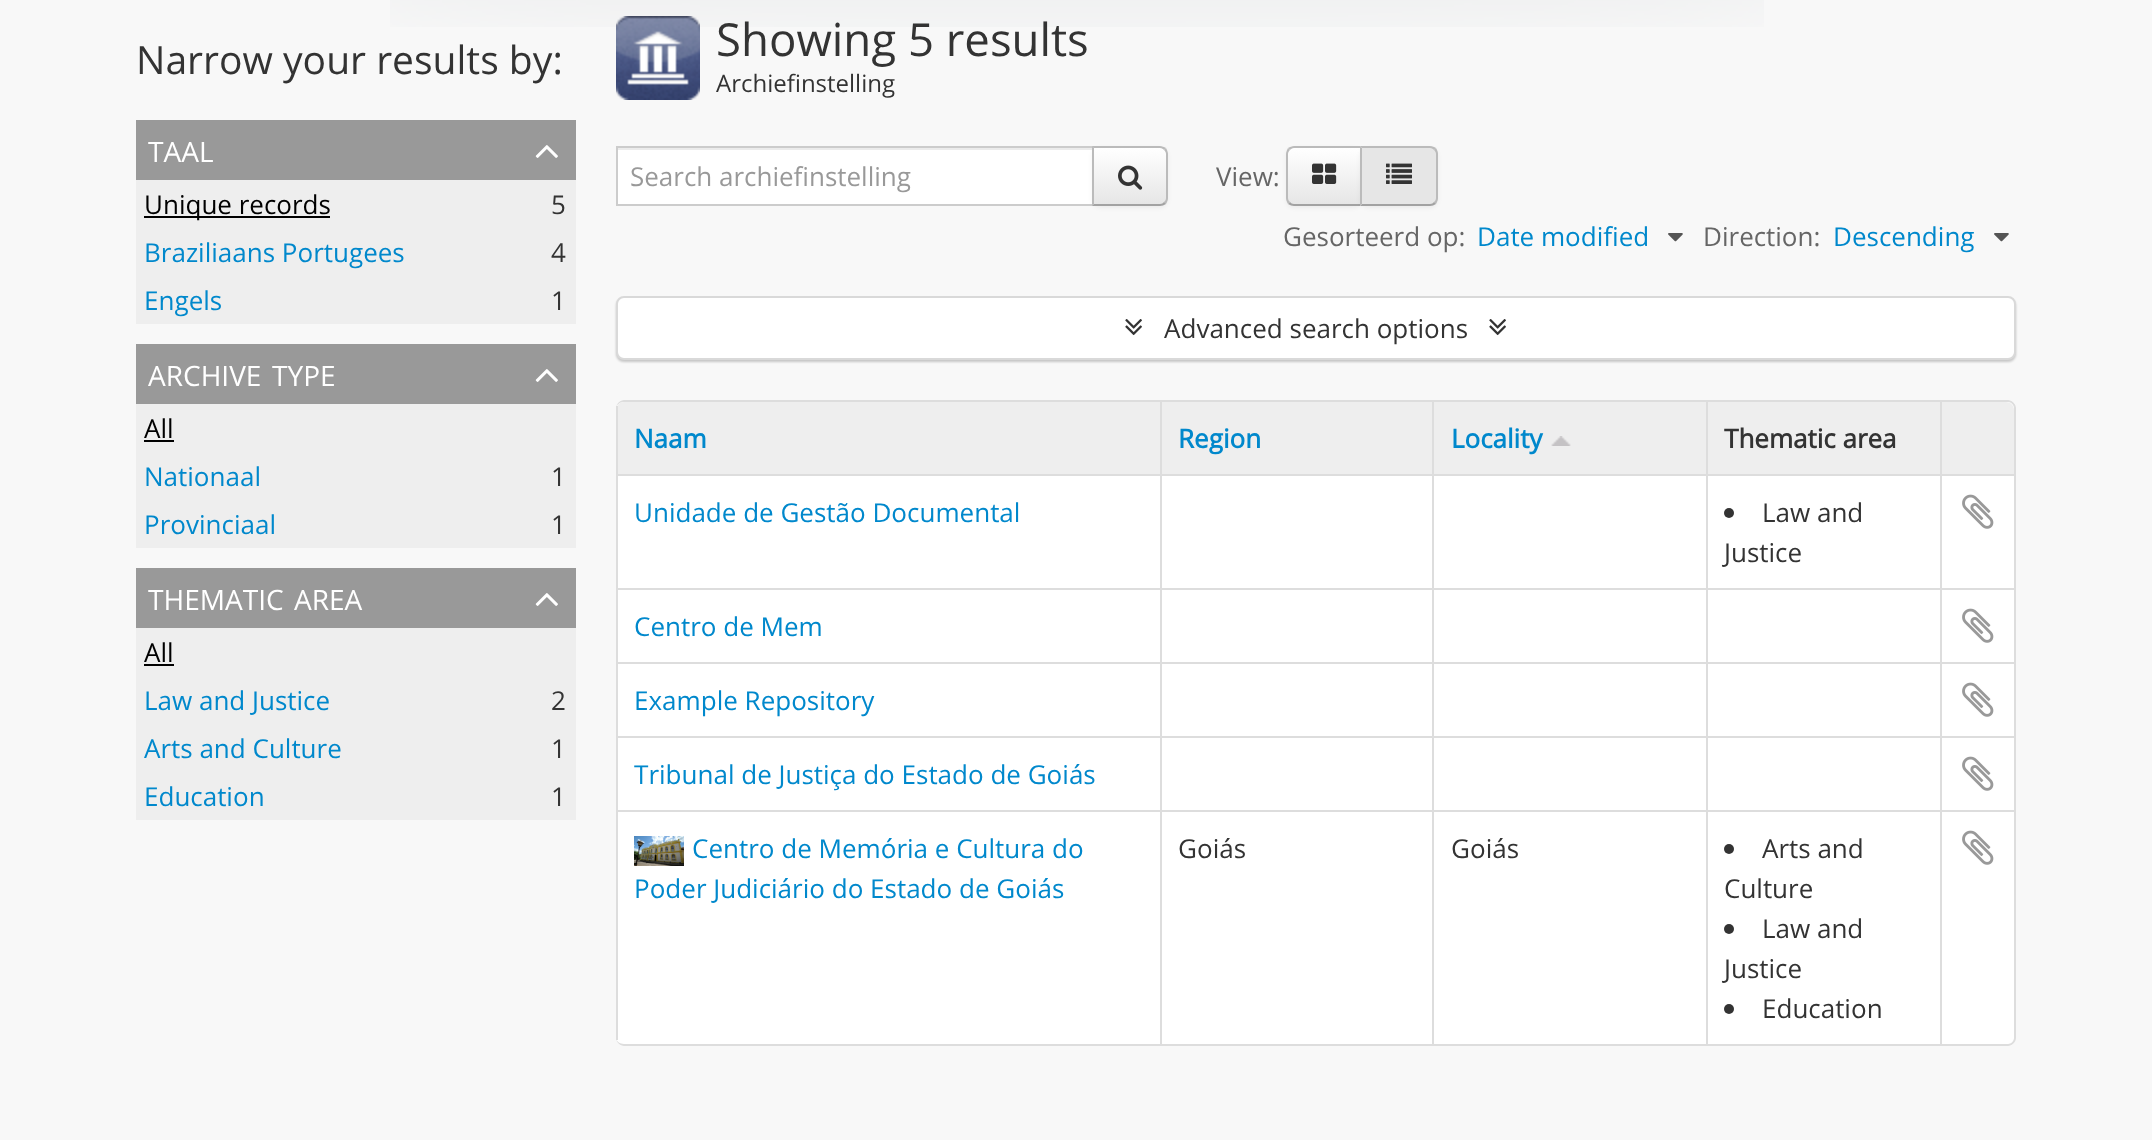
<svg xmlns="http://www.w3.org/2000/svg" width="2152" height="1140">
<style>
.a{font:39px Open Sans;fill:#333}
.b{font:28px Open Sans;fill:#fff}
.c{font:26px Open Sans;fill:#000}
.d{font:26px Open Sans;fill:#333}
.e{font:26px Open Sans;fill:#08c}
.f{font:45.5px Open Sans;fill:#333}
.g{font:24px Open Sans;fill:#333}
.h{font:26px Open Sans;fill:#999}
.i{font:26px Open Sans;fill:#666}
.j{font:bold 26px Open Sans;fill:#08c}
.k{font:bold 26px Open Sans;fill:#333}
</style>
<defs>
<clipPath id="clip1"><path d="M1092 146h68c4.5 0 8 3.5 8 8v44c0 4.5-3.5 8-8 8h-68z"/></clipPath>
<linearGradient id="g1" gradientUnits="userSpaceOnUse" x1="1130" y1="148" x2="1130" y2="204"><stop offset="0" stop-color="#fff"/><stop offset="1" stop-color="#e6e6e6"/></linearGradient>
<clipPath id="clip2"><path d="M1294 146h68v60h-68c-4.5 0-8-3.5-8-8v-44c0-4.5 3.5-8 8-8z"/></clipPath>
<linearGradient id="g2" gradientUnits="userSpaceOnUse" x1="1324" y1="148" x2="1324" y2="204"><stop offset="0" stop-color="#fff"/><stop offset="1" stop-color="#e6e6e6"/></linearGradient>
</defs>
<rect width="100%" height="100%" fill="#f8f8f8"/>
<image href="1.png" x="390" y="0" width="1374" height="27"/>
<path fill="#999" d="M136 120h440v60H136z"/>
<image href="2.png" x="535" y="145" width="23" height="13"/>
<path fill="#eee" d="M136 180h440v144H136z"/>
<path fill="#000" d="M144 216h186v2H144z"/>
<path fill="#999" d="M136 344h440v60H136z"/>
<image href="2.png" x="535" y="369" width="23" height="13"/>
<path fill="#eee" d="M136 404h440v144H136z"/>
<path fill="#000" d="M144 440h30v2H144z"/>
<path fill="#999" d="M136 568h440v60H136z"/>
<image href="2.png" x="535" y="593" width="23" height="13"/>
<path fill="#eee" d="M136 628h440v192H136z"/>
<path fill="#000" d="M144 664h30v2H144z"/>
<image href="3.png" x="616" y="16" width="84" height="84"/>
<path fill="#fff" d="M618 150h474v54H618z"/>
<path fill="#ececec" d="M618 148h476v2H618z"/>
<path fill="none" stroke="#ccc" stroke-width="2" d="M617 147h478v58H617z"/>
<rect fill="#0000000d" filter="blur(2px)" x="1092" y="148" width="76" height="60" rx="8"/>
<g clip-path="url(#clip1)">
<path fill="url(#g1)" d="M1094 148h74v56H1094z"/>
</g>
<path fill="#bbb" d="M1092 146l2 2h66c2 0 3 1 4 2l2-2c-2-1-4-2-6-2z"/>
<path fill="#bbb" d="M1168 198v-44c0-2-1-4-2-6l-2 2c1 1 2 2 2 4v44c0 2-1 3-2 4l2 2c1-2 2-4 2-6z"/>
<path fill="#a2a2a2" d="M1160 206c2 0 4-1 6-2l-2-2c-1 1-2 2-4 2h-66l-2 2z"/>
<path fill="#bbb" d="M1092 146v60l2-2v-56z"/>
<image href="4.png" x="1118" y="165" width="25" height="25"/>
<rect fill="#0000000d" filter="blur(2px)" x="1286" y="148" width="76" height="60" rx="8"/>
<g clip-path="url(#clip2)">
<path fill="url(#g2)" d="M1286 148h74v56H1286z"/>
</g>
<path fill="#bbb" d="M1294 146c-2 0-4 1-6 2l2 2c1-1 2-2 4-2h66l2-2z"/>
<path fill="#a2a2a2" d="M1362 206l-2-2h-66c-2 0-3-1-4-2l-2 2c2 1 4 2 6 2z"/>
<path fill="#bbb" d="M1286 154v44c0 2 1 4 2 6l2-2c-1-1-2-2-2-4v-44c0-2 1-3 2-4l-2-2c-1 2-2 4-2 6z"/>
<image href="5.png" x="1312" y="163" width="25" height="21"/>
<rect fill="#0000000d" filter="blur(2px)" x="1360" y="148" width="78" height="60" rx="8"/>
<path fill="#e6e6e6" d="M1360 146h70c4.5 0 8 3.5 8 8v44c0 4.5-3.5 8-8 8h-70z"/>
<path fill="#bbb" d="M1360 146l2 2h68c2 0 3 1 4 2l2-2c-2-1-4-2-6-2z"/>
<path fill="#bbb" d="M1438 198v-44c0-2-1-4-2-6l-2 2c1 1 2 2 2 4v44c0 2-1 3-2 4l2 2c1-2 2-4 2-6z"/>
<path fill="#a2a2a2" d="M1430 206c2 0 4-1 6-2l-2-2c-1 1-2 2-4 2h-68l-2 2z"/>
<path fill="#bbb" d="M1360 146v60l2-2v-56z"/>
<image href="6.png" x="1386" y="163" width="26" height="21"/>
<image href="7.png" x="1668" y="233" width="15" height="9"/>
<image href="7.png" x="1994" y="233" width="15" height="9"/>
<rect fill="#00000033" filter="blur(1px)" x="616" y="298" width="1400" height="64" rx="8"/>
<rect fill="#fff" stroke="#d9d9d9" stroke-width="2" x="617" y="297" width="1398" height="62" rx="7"/>
<image href="8.png" x="1125" y="319" width="17" height="17"/>
<image href="8.png" x="1489" y="319" width="17" height="17"/>
<rect fill="#fff" x="616" y="400" width="1400" height="646" rx="8"/>
<path fill="#ddd" fill-rule="evenodd" d="M624 400h1384c4 0 8 4 8 8v630c0 4-4 8-8 8h-1384c-4 0-8-4-8-8v-630c0-4 4-8 8-8zm0 2h1384c3 0 6 3 6 6v630c0 3-3 6-6 6h-1384c-4 0-8-3-8-6v-630c0-3 4-6 8-6z"/>
<path fill="#eee" d="M624 402h536v72h-544v-64c0-4.5 3.5-8 8-8z"/>
<path fill="#ddd" d="M616 406h2v68H616z"/>
<path fill="#eee" d="M1162 402h270v72H1162z"/>
<path fill="#ddd" d="M1160 402h2v72H1160z"/>
<path fill="#eee" d="M1434 402h272v72H1434z"/>
<path fill="#ddd" d="M1432 402h2v72H1432z"/>
<image href="9.png" x="1551" y="436" width="20" height="10"/>
<path fill="#eee" d="M1708 402h232v72H1708z"/>
<path fill="#ddd" d="M1706 402h2v72H1706z"/>
<path fill="#eee" d="M1940 402h66c4.5 0 8 3.5 8 8v64h-74z"/>
<path fill="#ddd" d="M1940 402h2v72H1940z"/>
<path fill="#ddd" d="M616 474h1398v2H616z"/>
<path fill="#ddd" d="M616 474h2v114H616z"/>
<path fill="#ddd" d="M1160 474h2v114H1160z"/>
<path fill="#ddd" d="M1432 474h2v114H1432z"/>
<path fill="#ddd" d="M1706 474h2v114H1706z"/>
<circle fill="#333" cx="1729" cy="513" r="5"/>
<path fill="#ddd" d="M1940 474h2v114H1940z"/>
<image href="10.png" x="1962" y="494" width="32" height="35"/>
<path fill="#ddd" d="M616 588h1398v2H616z"/>
<path fill="#ddd" d="M616 588h2v74H616z"/>
<path fill="#ddd" d="M1160 588h2v74H1160z"/>
<path fill="#ddd" d="M1432 588h2v74H1432z"/>
<path fill="#ddd" d="M1706 588h2v74H1706z"/>
<path fill="#ddd" d="M1940 588h2v74H1940z"/>
<image href="10.png" x="1962" y="608" width="32" height="35"/>
<path fill="#ddd" d="M616 662h1398v2H616z"/>
<path fill="#ddd" d="M616 662h2v74H616z"/>
<path fill="#ddd" d="M1160 662h2v74H1160z"/>
<path fill="#ddd" d="M1432 662h2v74H1432z"/>
<path fill="#ddd" d="M1706 662h2v74H1706z"/>
<path fill="#ddd" d="M1940 662h2v74H1940z"/>
<image href="10.png" x="1962" y="682" width="32" height="35"/>
<path fill="#ddd" d="M616 736h1398v2H616z"/>
<path fill="#ddd" d="M616 736h2v74H616z"/>
<path fill="#ddd" d="M1160 736h2v74H1160z"/>
<path fill="#ddd" d="M1432 736h2v74H1432z"/>
<path fill="#ddd" d="M1706 736h2v74H1706z"/>
<path fill="#ddd" d="M1940 736h2v74H1940z"/>
<image href="10.png" x="1962" y="756" width="32" height="35"/>
<path fill="#ddd" d="M616 810h1398v2H616z"/>
<path fill="#ddd" d="M616 810h2v230H616z"/>
<image href="11.png" x="634" y="836" width="50" height="30"/>
<path fill="#ddd" d="M1160 810h2v234H1160z"/>
<path fill="#ddd" d="M1432 810h2v234H1432z"/>
<path fill="#ddd" d="M1706 810h2v234H1706z"/>
<circle fill="#333" cx="1729" cy="849" r="5"/>
<circle fill="#333" cx="1729" cy="929" r="5"/>
<circle fill="#333" cx="1729" cy="1009" r="5"/>
<path fill="#ddd" d="M1940 810h2v234H1940z"/>
<image href="10.png" x="1962" y="830" width="32" height="35"/>
<text class="a" x="136" y="74">Narrow your results by:</text>
<text class="b" x="148" y="162">TAAL</text>
<text class="c" x="144" y="214">Unique records</text>
<text class="d" x="551" y="214">5</text>
<text class="e" x="144" y="262">Braziliaans Portugees</text>
<text class="d" x="551" y="262">4</text>
<text class="e" x="144" y="310">Engels</text>
<text class="d" x="551" y="310">1</text>
<text class="b" x="148" y="386">ARCHIVE</text>
<text class="b" x="272" y="386">TYPE</text>
<text class="c" x="144" y="438">All</text>
<text class="e" x="144" y="486">Nationaal</text>
<text class="d" x="551" y="486">1</text>
<text class="e" x="144" y="534">Provinciaal</text>
<text class="d" x="551" y="534">1</text>
<text class="b" x="148" y="610">THEMATIC</text>
<text class="b" x="294" y="610">AREA</text>
<text class="c" x="144" y="662">All</text>
<text class="e" x="144" y="710">Law and Justice</text>
<text class="d" x="551" y="710">2</text>
<text class="e" x="144" y="758">Arts and Culture</text>
<text class="d" x="551" y="758">1</text>
<text class="e" x="144" y="806">Education</text>
<text class="d" x="551" y="806">1</text>
<text class="f" x="716" y="56">Showing 5 results</text>
<text class="g" x="716" y="92">Archiefinstelling</text>
<text class="h" x="630" y="186">Search archiefinstelling</text>
<text class="i" x="1216" y="186">View:</text>
<text class="i" x="1283" y="246">Gesorteerd op:</text>
<text class="e" x="1477" y="246">Date modified</text>
<text class="i" x="1703" y="246">Direction:</text>
<text class="e" x="1833" y="246">Descending</text>
<text class="d" x="1164" y="338">Advanced search options</text>
<text class="j" x="634" y="448">Naam</text>
<text class="j" x="1178" y="448">Region</text>
<text class="j" x="1451" y="448">Locality</text>
<text class="k" x="1724" y="448">Thematic area</text>
<text class="e" x="634" y="522">Unidade de Gestão Documental</text>
<text class="d" x="1762" y="522">Law and</text>
<text class="d" x="1724" y="562">Justice</text>
<text class="e" x="634" y="636">Centro de Mem</text>
<text class="e" x="634" y="710">Example Repository</text>
<text class="e" x="634" y="784">Tribunal de Justiça do Estado de Goiás</text>
<text class="e" x="692" y="858">Centro de Memória e Cultura do</text>
<text class="e" x="634" y="898">Poder Judiciário do Estado de Goiás</text>
<text class="d" x="1178" y="858">Goiás</text>
<text class="d" x="1451" y="858">Goiás</text>
<text class="d" x="1762" y="858">Arts and</text>
<text class="d" x="1724" y="898">Culture</text>
<text class="d" x="1762" y="938">Law and</text>
<text class="d" x="1724" y="978">Justice</text>
<text class="d" x="1762" y="1018">Education</text>
</svg>
